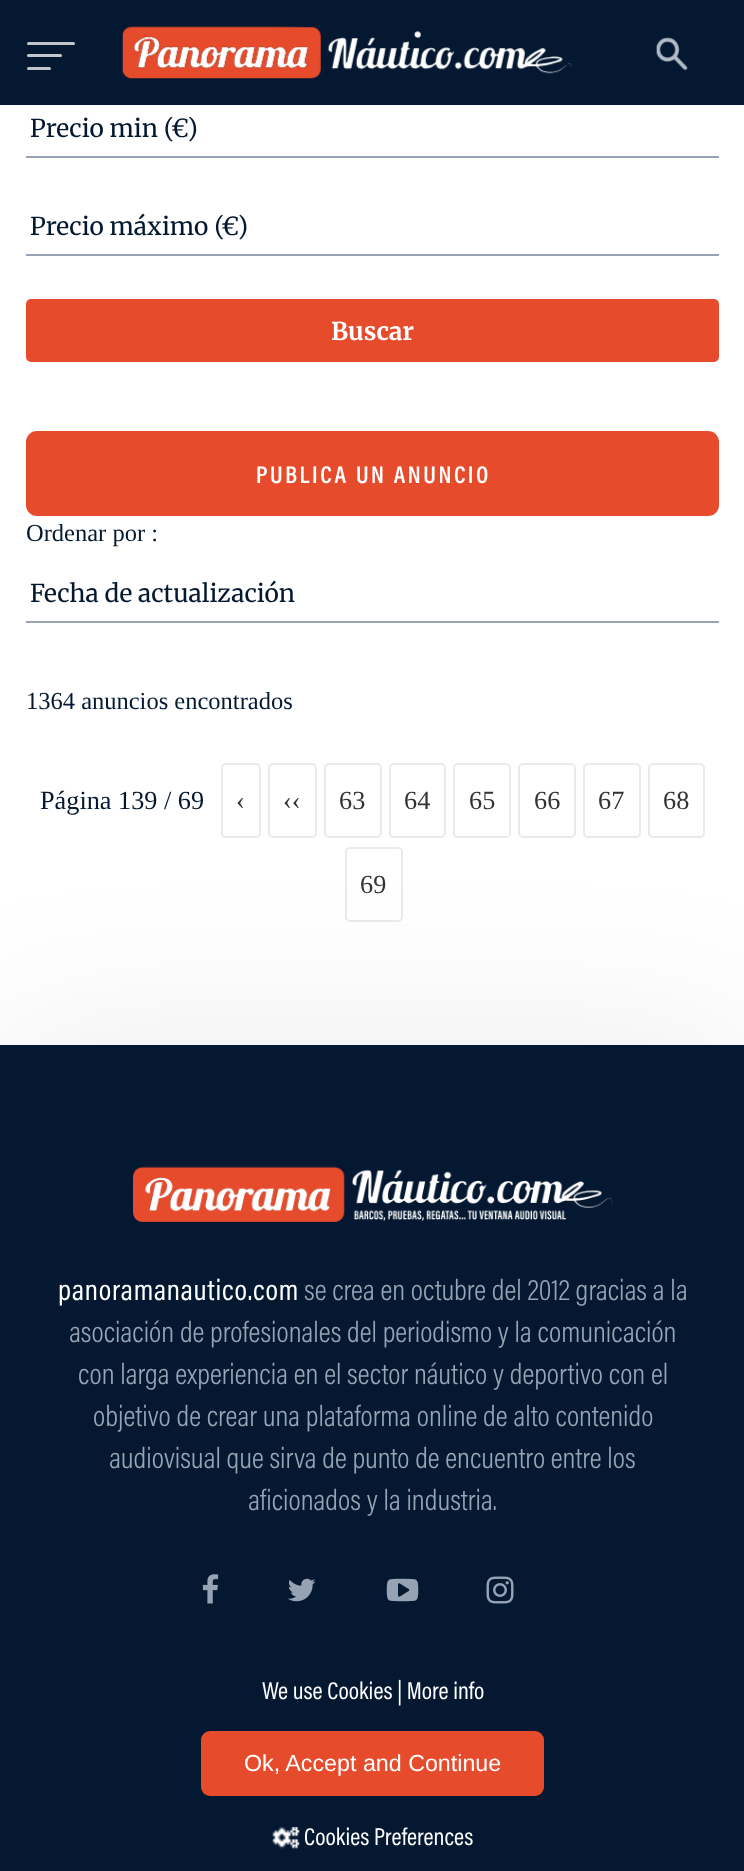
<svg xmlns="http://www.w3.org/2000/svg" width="744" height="1871">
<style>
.a{font:24.5px Merriweather;fill:#041931}
.b{font:bold 24.5px Merriweather;fill:#fff}
.c{font:600 24.5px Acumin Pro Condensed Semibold;letter-spacing:2.6px;fill:#fff}
.d{font:24.5px Liberation Serif;fill:#041931}
.e{font:26.25px Liberation Serif;fill:#041931}
.f{font:26.25px Liberation Serif;fill:#333}
.g{font:29.75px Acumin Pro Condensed;letter-spacing:0.75px;fill:#fff}
.h{font:300 29.75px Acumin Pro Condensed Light;fill:#96a4b4}
.i{font:24.5px Acumin Pro Condensed;fill:#fff}
.j{font:23.25px Liberation Sans;fill:#fff}
</style>
<rect width="100%" height="100%" fill="#fff"/>
<path fill="#041931" d="M0 0h744v105H0z"/>
<rect fill="#c0c6cc" x="27" y="42" width="48" height="3" rx="1.5"/>
<rect fill="#c0c6cc" x="27" y="54" width="35" height="3" rx="1.5"/>
<rect fill="#c0c6cc" x="27" y="67" width="24" height="3" rx="1.5"/>
<image href="1.png" x="122" y="26" width="450" height="53"/>
<image href="2.png" x="655" y="37" width="33" height="34"/>
<path fill="#96a4b4" d="M26 156h693v2H26z"/>
<path fill="#96a4b4" d="M26 254h693v2H26z"/>
<rect fill="#e64b2c" x="26" y="299" width="693" height="63" rx="5"/>
<rect fill="#e64b2c" x="26" y="431" width="693" height="85" rx="11"/>
<path fill="#96a4b4" d="M26 621h693v2H26z"/>
<rect fill="none" stroke="#eaeaea" stroke-width="2" x="222" y="764" width="38" height="73" rx="4"/>
<rect fill="none" stroke="#eaeaea" stroke-width="2" x="269" y="764" width="47" height="73" rx="4"/>
<rect fill="none" stroke="#eaeaea" stroke-width="2" x="325" y="764" width="56" height="73" rx="4"/>
<rect fill="none" stroke="#eaeaea" stroke-width="2" x="390" y="764" width="55" height="73" rx="4"/>
<rect fill="none" stroke="#eaeaea" stroke-width="2" x="454" y="764" width="56" height="73" rx="4"/>
<rect fill="none" stroke="#eaeaea" stroke-width="2" x="519" y="764" width="56" height="73" rx="4"/>
<rect fill="none" stroke="#eaeaea" stroke-width="2" x="584" y="764" width="56" height="73" rx="4"/>
<rect fill="none" stroke="#eaeaea" stroke-width="2" x="649" y="764" width="55" height="73" rx="4"/>
<rect fill="none" stroke="#eaeaea" stroke-width="2" x="346" y="848" width="56" height="73" rx="4"/>
<path fill="#00000014" filter="blur(87.5px)" d="M0 1045h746v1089H0z"/>
<path fill="#041931" d="M0 1045h744v826H0z"/>
<image href="3.png" x="133" y="1166" width="480" height="56"/>
<image href="4.png" x="202" y="1574" width="17" height="30"/>
<image href="5.png" x="288" y="1578" width="28" height="24"/>
<image href="6.png" x="386" y="1578" width="33" height="24"/>
<image href="7.png" x="486" y="1576" width="28" height="28"/>
<rect fill="#e64b2c" x="201" y="1731" width="343" height="65" rx="9"/>
<image href="8.png" x="272" y="1827" width="28" height="22"/>
<text class="a" x="30" y="137">Precio min (€)</text>
<text class="a" x="30" y="235">Precio máximo (€)</text>
<text class="b" x="331" y="340">Buscar</text>
<text class="c" x="256" y="483">PUBLICA UN ANUNCIO</text>
<text class="d" x="26" y="541">Ordenar por :</text>
<text class="a" x="30" y="602">Fecha de actualización</text>
<text class="d" x="26" y="709">1364 anuncios encontrados</text>
<text class="e" x="40" y="809">Página 139 / 69</text>
<text class="f" x="236" y="809">‹</text>
<text class="f" x="283" y="809">‹‹</text>
<text class="f" x="339" y="809">63</text>
<text class="f" x="404" y="809">64</text>
<text class="f" x="469" y="809">65</text>
<text class="f" x="534" y="809">66</text>
<text class="f" x="598" y="809">67</text>
<text class="f" x="663" y="809">68</text>
<text class="f" x="360" y="893">69</text>
<text class="g" x="58" y="1300">panoramanautico.com</text>
<text class="h" x="304" y="1300">se crea en octubre del 2012 gracias a la</text>
<text class="h" x="69" y="1342">asociación de profesionales del periodismo y la comunicación</text>
<text class="h" x="78" y="1384">con larga experiencia en el sector náutico y deportivo con el</text>
<text class="h" x="93" y="1426">objetivo de crear una plataforma online de alto contenido</text>
<text class="h" x="109" y="1468">audiovisual que sirva de punto de encuentro entre los</text>
<text class="h" x="248" y="1510">aficionados y la industria.</text>
<text class="i" x="262" y="1699">We use Cookies | More info</text>
<text class="j" x="244" y="1771">Ok, Accept and Continue</text>
<text class="i" x="304" y="1845">Cookies Preferences</text>
</svg>
